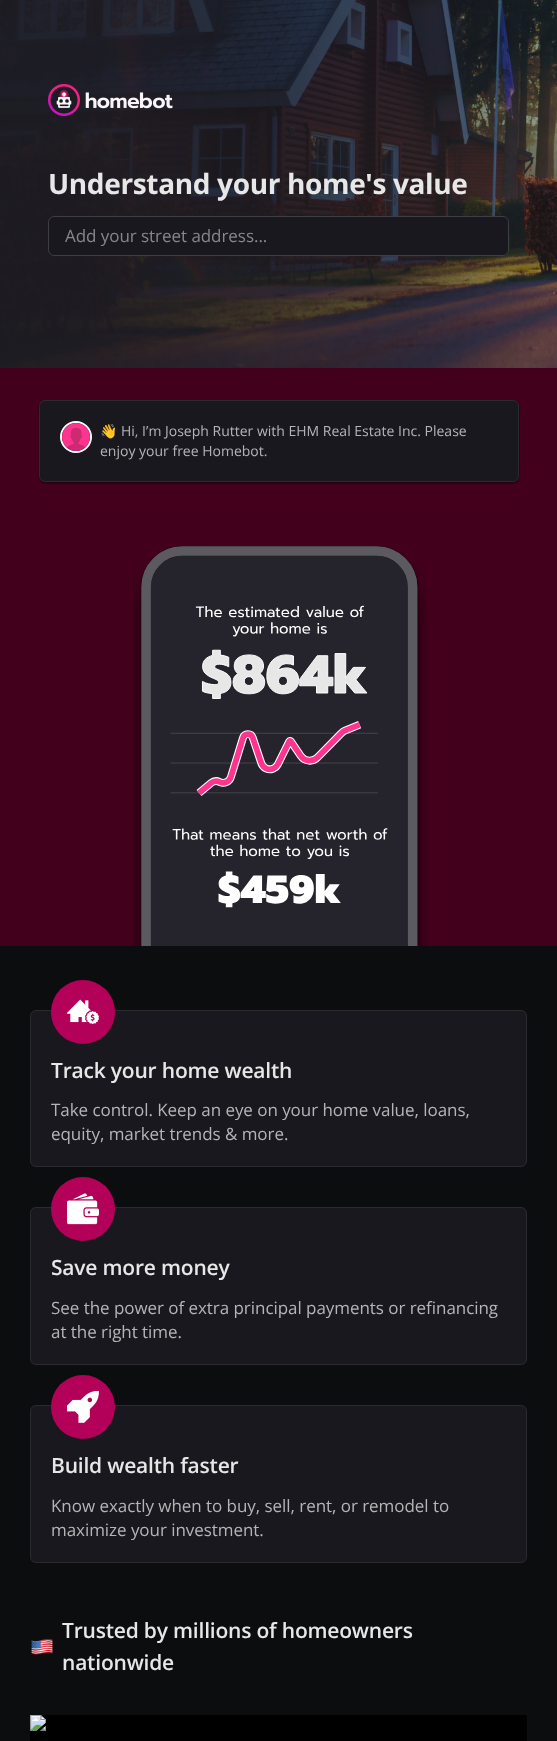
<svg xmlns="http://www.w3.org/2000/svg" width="557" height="1741">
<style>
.a{font:bold 28px Open Sans;letter-spacing:-0.35px;fill:#e8e7e8}
.b{font:17px Open Sans;letter-spacing:-0.05px;fill:#87878a}
.c{font:14px Noto Color Emoji;fill:#b5b4b7}
.d{font:14px Open Sans;fill:#b5b4b7}
.e{font:600 21px Open Sans;letter-spacing:-0.2px;fill:#e8e7e8}
.f{font:17px Open Sans;letter-spacing:-0.05px;fill:#b5b4b7}
</style>
<defs>
<radialGradient id="g1" gradientUnits="userSpaceOnUse" cx="0" cy="0" r="1" gradientTransform="matrix(435 0 0 617 279 0)"><stop offset="0" stop-color="#1c141f"/><stop offset="1" stop-color="#0c0d0e"/></radialGradient>
</defs>
<rect width="100%" height="100%" fill="#fff"/>
<path fill="url(#g1)" d="M0 946h557v795H0z"/>
<image href="1.png" x="0" y="0" width="557" height="368"/>
<image href="2.png" x="48" y="84" width="125" height="32"/>
<rect fill="#19181e" x="48" y="216" width="461" height="40" rx="6"/>
<rect fill="none" stroke="#ffffff29" x="48.5" y="216.5" width="460" height="39" rx="5.5"/>
<path fill="#42001c" d="M0 368h557v578H0z"/>
<rect fill="#0000008f" filter="blur(1px)" x="39" y="401" width="480" height="82" rx="6"/>
<rect fill="#19181e" x="39" y="400" width="480" height="82" rx="6"/>
<rect fill="none" stroke="#ffffff14" x="39.5" y="400.5" width="479" height="81" rx="5.5"/>
<circle fill="none" stroke="#fff" stroke-width="2" cx="76" cy="437" r="15"/>
<image href="3.png" x="62" y="423" width="28" height="28"/>
<image href="4.png" x="132" y="546" width="295" height="400"/>
<rect fill="#19181e" x="30" y="1010" width="497" height="157" rx="6"/>
<rect fill="none" stroke="#ffffff14" x="30.5" y="1010.5" width="496" height="156" rx="5.5"/>
<circle fill="#b30059" cx="83" cy="1012" r="32"/>
<image href="5.png" x="67" y="999" width="32" height="25"/>
<rect fill="#19181e" x="30" y="1207" width="497" height="158" rx="6"/>
<rect fill="none" stroke="#ffffff14" x="30.5" y="1207.5" width="496" height="157" rx="5.5"/>
<circle fill="#b30059" cx="83" cy="1209" r="32"/>
<image href="6.png" x="67" y="1193" width="32" height="32"/>
<rect fill="#19181e" x="30" y="1405" width="497" height="158" rx="6"/>
<rect fill="none" stroke="#ffffff14" x="30.5" y="1405.5" width="496" height="157" rx="5.5"/>
<circle fill="#b30059" cx="83" cy="1407" r="32"/>
<image href="7.png" x="67" y="1391" width="32" height="32"/>
<image href="8.png" x="31" y="1638" width="22" height="17"/>
<image href="9.png" x="30" y="1715" width="497" height="26"/>
<text class="a" x="48" y="194">Understand your home's value</text>
<text class="b" x="65" y="242">Add your street address...</text>
<text class="c" x="100" y="436">👋</text>
<text class="d" x="121" y="436">Hi, I’m Joseph Rutter with EHM Real Estate Inc. Please</text>
<text class="d" x="100" y="456">enjoy your free Homebot.</text>
<text class="e" x="51" y="1078">Track your home wealth</text>
<text class="f" x="51" y="1116">Take control. Keep an eye on your home value, loans,</text>
<text class="f" x="51" y="1140">equity, market trends &amp; more.</text>
<text class="e" x="51" y="1275">Save more money</text>
<text class="f" x="51" y="1314">See the power of extra principal payments or refinancing</text>
<text class="f" x="51" y="1338">at the right time.</text>
<text class="e" x="51" y="1473">Build wealth faster</text>
<text class="f" x="51" y="1512">Know exactly when to buy, sell, rent, or remodel to</text>
<text class="f" x="51" y="1536">maximize your investment.</text>
<text class="e" x="62" y="1638">Trusted by millions of homeowners</text>
<text class="e" x="62" y="1670">nationwide</text>
</svg>
